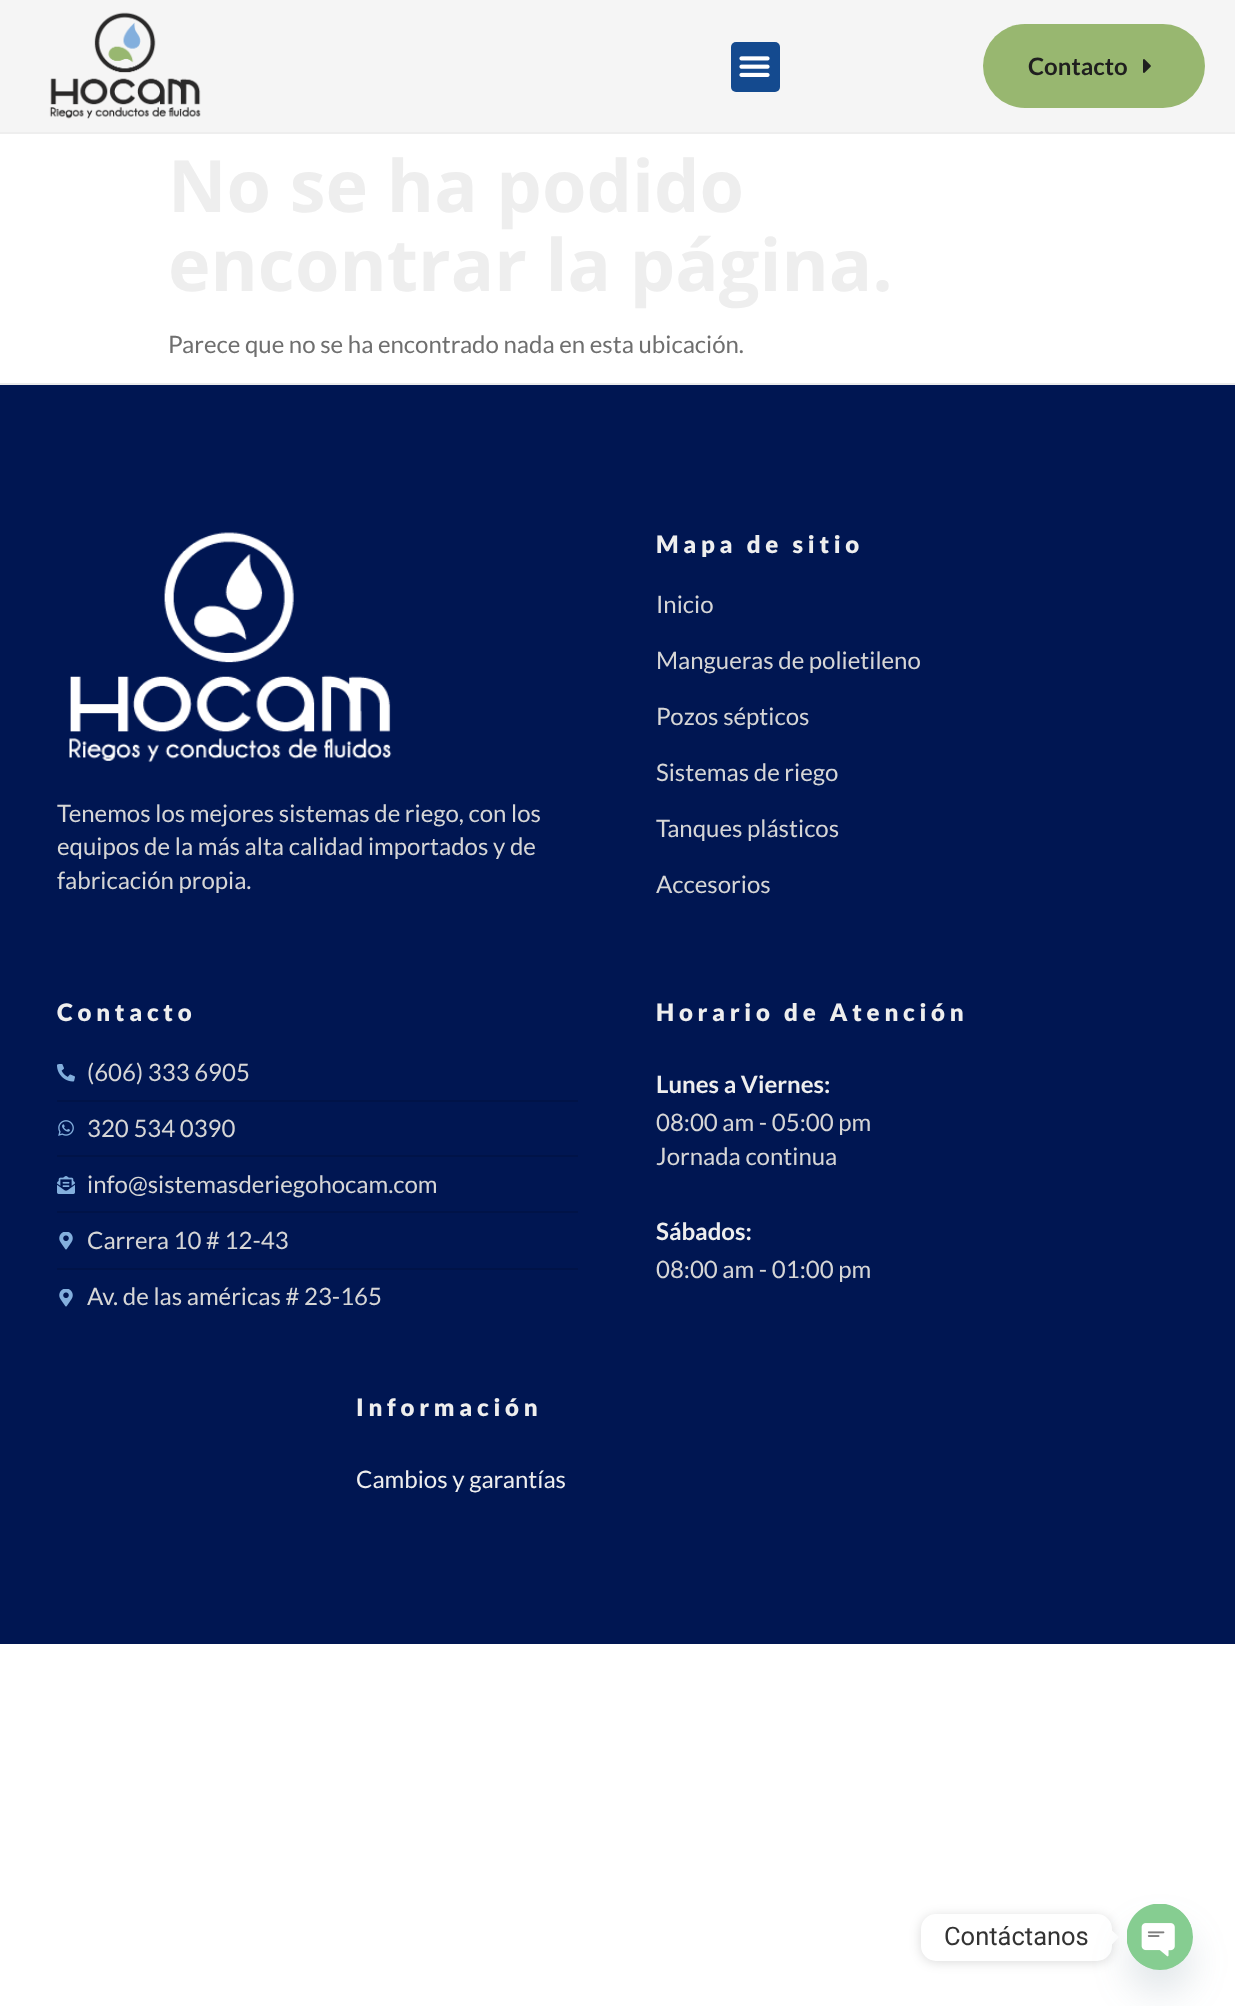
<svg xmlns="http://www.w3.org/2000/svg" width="1235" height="2006">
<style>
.a{font:bold 24px Lato;fill:#1f1f1f}
.b{font:bold 72px Open Sans;fill:#eee}
.c{font:24px Lato;fill:#6f6f6f}
.d{font:24px Lato;fill:#d6d6d6}
.e{font:900 24px Lato;letter-spacing:4.75px;fill:#eee}
.f{font:bold 24px Lato;fill:#eee}
.g{font:24px Lato;fill:#eee}
.h{font:25.5px Roboto;fill:#333}
</style>
<rect width="100%" height="100%" fill="#fff"/>
<path fill="#f5f5f5" d="M0 0h1235v132H0z"/>
<path fill="#eee" d="M0 132h1235v2H0z"/>
<image href="1.png" x="49" y="12" width="152" height="107"/>
<rect fill="#144a8f" x="731" y="42" width="49" height="50" rx="5"/>
<image href="2.png" x="739" y="56" width="31" height="21"/>
<rect fill="#98b770" x="983" y="24" width="222" height="84" rx="42"/>
<image href="3.png" x="1143" y="59" width="8" height="14"/>
<path fill="#001652" d="M0 385h1235v1259H0z"/>
<path fill="#ebebeb" d="M0 383h1235v2H0z"/>
<image href="4.png" x="69" y="532" width="323" height="231"/>
<image href="5.png" x="57" y="1064" width="18" height="18"/>
<path fill="#001348" d="M57 1100h521v2H57z"/>
<image href="6.png" x="58" y="1120" width="16" height="16"/>
<path fill="#001348" d="M57 1155h521v2H57z"/>
<image href="7.png" x="57" y="1176" width="18" height="18"/>
<path fill="#001348" d="M57 1211h521v2H57z"/>
<image href="8.png" x="59" y="1232" width="14" height="18"/>
<path fill="#001348" d="M57 1268h521v2H57z"/>
<image href="8.png" x="59" y="1289" width="14" height="18"/>
<rect fill="#00000026" filter="blur(6px)" x="921" y="1916" width="191" height="46" rx="15"/>
<rect fill="#fff" x="921" y="1914" width="191" height="47" rx="15"/>
<path fill="#fff" d="M1111.5 1945v-15l7.5 7z"/>
<rect fill="#49687e29" filter="blur(18px)" x="1127" y="1928" width="66" height="66" rx="33"/>
<circle fill="#86cd91" cx="1160" cy="1937" r="33"/>
<image href="9.png" x="1127" y="1904" width="65" height="63"/>
<text class="a" x="1028" y="75">Contacto</text>
<text class="b" x="168" y="212">No se ha podido</text>
<text class="b" x="168" y="291">encontrar la página.</text>
<text class="c" x="168" y="353">Parece que no se ha encontrado nada en esta ubicación.</text>
<text class="d" x="57" y="822">Tenemos los mejores sistemas de riego, con los</text>
<text class="d" x="57" y="855">equipos de la más alta calidad importados y de</text>
<text class="d" x="57" y="889">fabricación propia.</text>
<text class="e" x="656" y="553">Mapa de sitio</text>
<text class="d" x="656" y="613">Inicio</text>
<text class="d" x="656" y="669">Mangueras de polietileno</text>
<text class="d" x="656" y="725">Pozos sépticos</text>
<text class="d" x="656" y="781">Sistemas de riego</text>
<text class="d" x="656" y="837">Tanques plásticos</text>
<text class="d" x="656" y="893">Accesorios</text>
<text class="e" x="57" y="1021">Contacto</text>
<text class="d" x="87" y="1081">(606) 333 6905</text>
<text class="d" x="87" y="1137">320 534 0390</text>
<text class="d" x="87" y="1193">info@sistemasderiegohocam.com</text>
<text class="d" x="87" y="1249">Carrera 10 # 12-43</text>
<text class="d" x="87" y="1305">Av. de las américas # 23-165</text>
<text class="e" x="656" y="1021">Horario de Atención</text>
<text class="f" x="656" y="1093">Lunes a Viernes:</text>
<text class="d" x="656" y="1131">08:00 am - 05:00 pm</text>
<text class="d" x="656" y="1165">Jornada continua</text>
<text class="f" x="656" y="1240">Sábados:</text>
<text class="d" x="656" y="1278">08:00 am - 01:00 pm</text>
<text class="e" x="356" y="1416">Información</text>
<text class="g" x="356" y="1488">Cambios y garantías</text>
<text class="h" x="944" y="1945">Contáctanos</text>
</svg>
